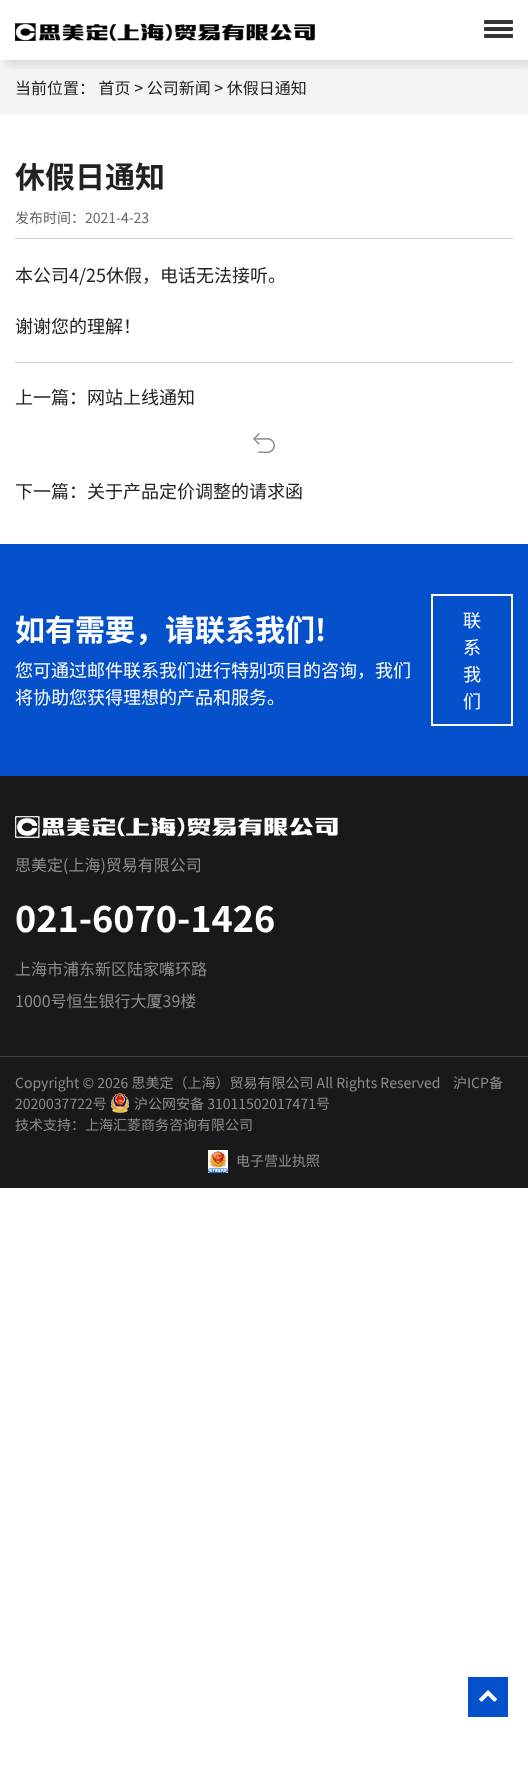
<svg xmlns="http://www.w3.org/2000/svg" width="528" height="1767">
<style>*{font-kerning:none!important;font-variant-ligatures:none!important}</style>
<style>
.a{font:16px Noto Sans CJK SC;fill:#222}
.b{font:bold 30px Noto Sans CJK SC;fill:#222}
.c{font:14px Noto Sans CJK SC;fill:#666}
.d{font:18px Noto Sans CJK SC;fill:#222}
.e{font:bold 30px Noto Sans CJK SC;fill:#fff}
.f{font:18px Noto Sans CJK SC;fill:#fff}
.g{font:16px Noto Sans CJK SC;fill:#8d8c8c}
.h{font:bold 36px Noto Sans CJK SC;fill:#fff}
.i{font:14px Noto Sans CJK SC;fill:#8d8c8c}
</style>
<defs>
<clipPath id="clip1"><path d="M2 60h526v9H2z"/></clipPath>
</defs>
<rect width="100%" height="100%" fill="#fff"/>
<path fill="#f4f4f4" d="M0 60h528v54H0z"/>
<g clip-path="url(#clip1)">
<path fill="#0000001a" filter="blur(5px)" d="M5 5h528v60H5z"/>
</g>
<image href="1.png" x="15" y="23" width="300" height="18"/>
<rect fill="#333" x="484" y="20" width="29" height="4" rx="1"/>
<rect fill="#333" x="484" y="27" width="29" height="4" rx="1"/>
<rect fill="#333" x="484" y="34" width="29" height="4" rx="1"/>
<path fill="#ccc" d="M15 238h498v1H15z"/>
<path fill="#ccc" d="M15 362h498v1H15z"/>
<image href="2.png" x="253" y="433" width="22" height="20"/>
<path fill="#0551cb" d="M0 544h528v232H0z"/>
<path fill="none" stroke="#fff" stroke-width="2" d="M432 595h80v130H432z"/>
<path fill="#1a1919" d="M0 776h528v412H0z"/>
<image href="3.png" x="15" y="816" width="323" height="22"/>
<path fill="#414447" d="M0 1056h528v1H0z"/>
<image href="4.png" x="111" y="1093" width="18" height="20"/>
<image href="5.png" x="208" y="1150" width="20" height="23"/>
<path fill="#0551cb" d="M468 1677h40v40H468z"/>
<image href="6.png" x="479" y="1690" width="18" height="12"/>
<text class="a" x="15" y="94">当前位置： 首页 &gt; 公司新闻 &gt; 休假日通知</text>
<text class="b" x="15" y="188">休假日通知</text>
<text class="c" x="15" y="223">发布时间：2021-4-23</text>
<text class="d" x="15" y="282">本公司4/25休假，电话无法接听。</text>
<text class="d" x="15" y="333">谢谢您的理解！</text>
<text class="d" x="15" y="404">上一篇：网站上线通知</text>
<text class="d" x="15" y="498">下一篇：关于产品定价调整的请求函</text>
<text class="e" x="15" y="641">如有需要，请联系我们!</text>
<text class="f" x="15" y="677">您可通过邮件联系我们进行特别项目的咨询，我们</text>
<text class="f" x="15" y="704">将协助您获得理想的产品和服务。</text>
<text class="f" x="463" y="627">联</text>
<text class="f" x="463" y="654">系</text>
<text class="f" x="463" y="681">我</text>
<text class="f" x="463" y="708">们</text>
<text class="g" x="15" y="871">思美定(上海)贸易有限公司</text>
<text class="h" x="15" y="932">021-6070-1426</text>
<text class="g" x="15" y="975">上海市浦东新区陆家嘴环路</text>
<text class="g" x="15" y="1007">1000号恒生银行大厦39楼</text>
<text class="i" x="15" y="1088">Copyright © 2026 思美定（上海）贸易有限公司 All Rights Reserved</text>
<text class="i" x="453" y="1088">沪ICP备</text>
<text class="i" x="15" y="1109">2020037722号</text>
<text class="i" x="134" y="1109">沪公网安备 31011502017471号</text>
<text class="i" x="15" y="1130">技术支持：上海汇菱商务咨询有限公司</text>
<text class="i" x="236" y="1166">电子营业执照</text>
</svg>
